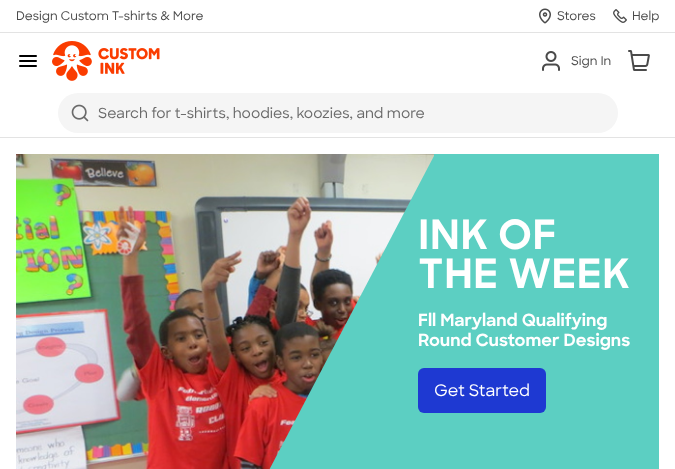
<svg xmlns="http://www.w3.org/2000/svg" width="675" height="469">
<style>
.a{font:500 12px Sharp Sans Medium;fill:#4a4a4a}
.b{font:500 14px Sharp Sans Medium;fill:#696969}
.c{font:bold 40.5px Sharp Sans;letter-spacing:0.5px;fill:#fff}
.d{font:bold 16.9px Sharp Sans;fill:#fff}
.e{font:500 16px Sharp Sans Medium;fill:#fff}
</style>
<rect width="100%" height="100%" fill="#fff"/>
<path fill="#e3e3e3" d="M0 32h675v1H0z"/>
<image href="1.png" x="539" y="8" width="12" height="16"/>
<image href="2.png" x="613" y="9" width="14" height="14"/>
<path fill="#e3e3e3" d="M0 137h675v1H0z"/>
<rect fill="#000" x="19" y="55" width="18" height="2" rx="1"/>
<rect fill="#000" x="19" y="60" width="18" height="2" rx="1"/>
<rect fill="#000" x="19" y="65" width="18" height="2" rx="1"/>
<image href="3.png" x="52" y="41" width="108" height="40"/>
<image href="4.png" x="542" y="51" width="18" height="20"/>
<image href="5.png" x="628" y="50" width="22" height="21"/>
<rect fill="#f5f5f5" x="58" y="93" width="560" height="40" rx="20"/>
<image href="6.png" x="71" y="104" width="18" height="18"/>
<image href="7.png" x="16" y="154" width="418" height="315"/>
<path fill="#5ccfc2" d="M434 154h225v315H434z"/>
<path fill="#5ccfc2" d="M435 154v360h-189z"/>
<rect fill="#1e39d2" x="418" y="368" width="128" height="45" rx="6"/>
<text class="a" x="16" y="20">Design Custom T-shirts &amp; More</text>
<text class="a" x="557" y="20">Stores</text>
<text class="a" x="632" y="20">Help</text>
<text class="a" x="571" y="65">Sign In</text>
<text class="b" x="98" y="118">Search for t-shirts, hoodies, koozies, and more</text>
<text class="c" x="418" y="249">INK OF</text>
<text class="c" x="418" y="288">THE WEEK</text>
<text class="d" x="418" y="326">Fll Maryland Qualifying</text>
<text class="d" x="418" y="346">Round Customer Designs</text>
<text class="e" x="434" y="396">Get Started</text>
</svg>
